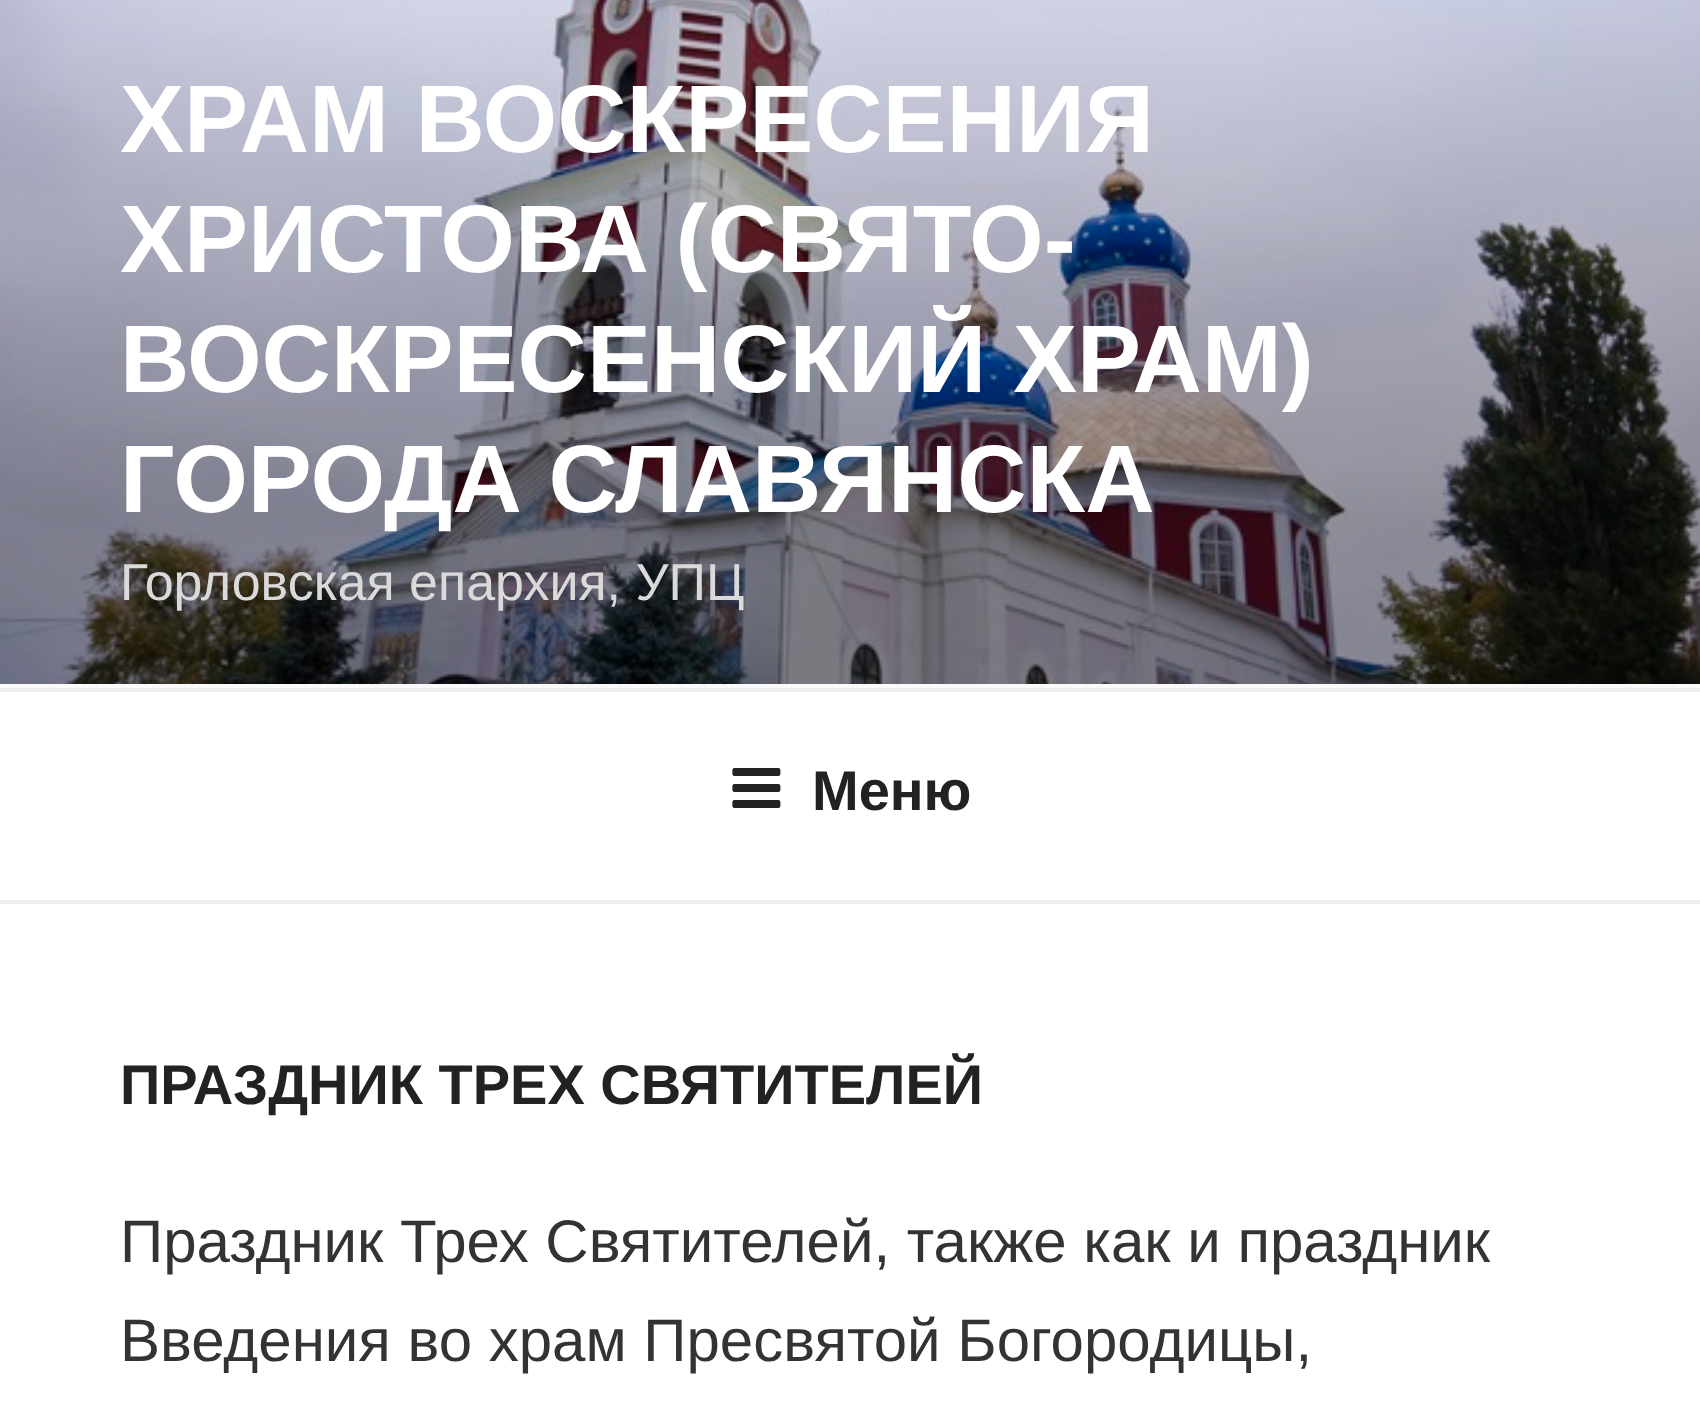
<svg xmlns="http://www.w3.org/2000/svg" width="1700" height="1405">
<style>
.a{font:bold 96px Liberation Sans;fill:#fff}
.b{font:52px Liberation Sans;fill:#dadadb}
.c{font:bold 56px Liberation Sans;fill:#222}
.d{font:60px Liberation Sans;fill:#333}
</style>
<rect width="100%" height="100%" fill="#fff"/>
<path fill="#fafafa" d="M0 684h1700v4H0z"/>
<image href="1.png" x="0" y="0" width="1700" height="684"/>
<path fill="#eee" d="M0 688h1700v4H0z"/>
<path fill="#eee" d="M0 900h1700v4H0z"/>
<image href="2.png" x="732" y="768" width="49" height="40"/>
<text class="a" x="120" y="152">ХРАМ ВОСКРЕСЕНИЯ</text>
<text class="a" x="120" y="272">ХРИСТОВА (СВЯТО-</text>
<text class="a" x="120" y="392">ВОСКРЕСЕНСКИЙ ХРАМ)</text>
<text class="a" x="120" y="512">ГОРОДА СЛАВЯНСКА</text>
<text class="b" x="120" y="600">Горловская епархия, УПЦ</text>
<text class="c" x="812" y="810">Меню</text>
<text class="c" x="120" y="1104">ПРАЗДНИК ТРЕХ СВЯТИТЕЛЕЙ</text>
<text class="d" x="120" y="1262">Праздник Трех Святителей, также как и праздник</text>
<text class="d" x="120" y="1361">Введения во храм Пресвятой Богородицы,</text>
</svg>
